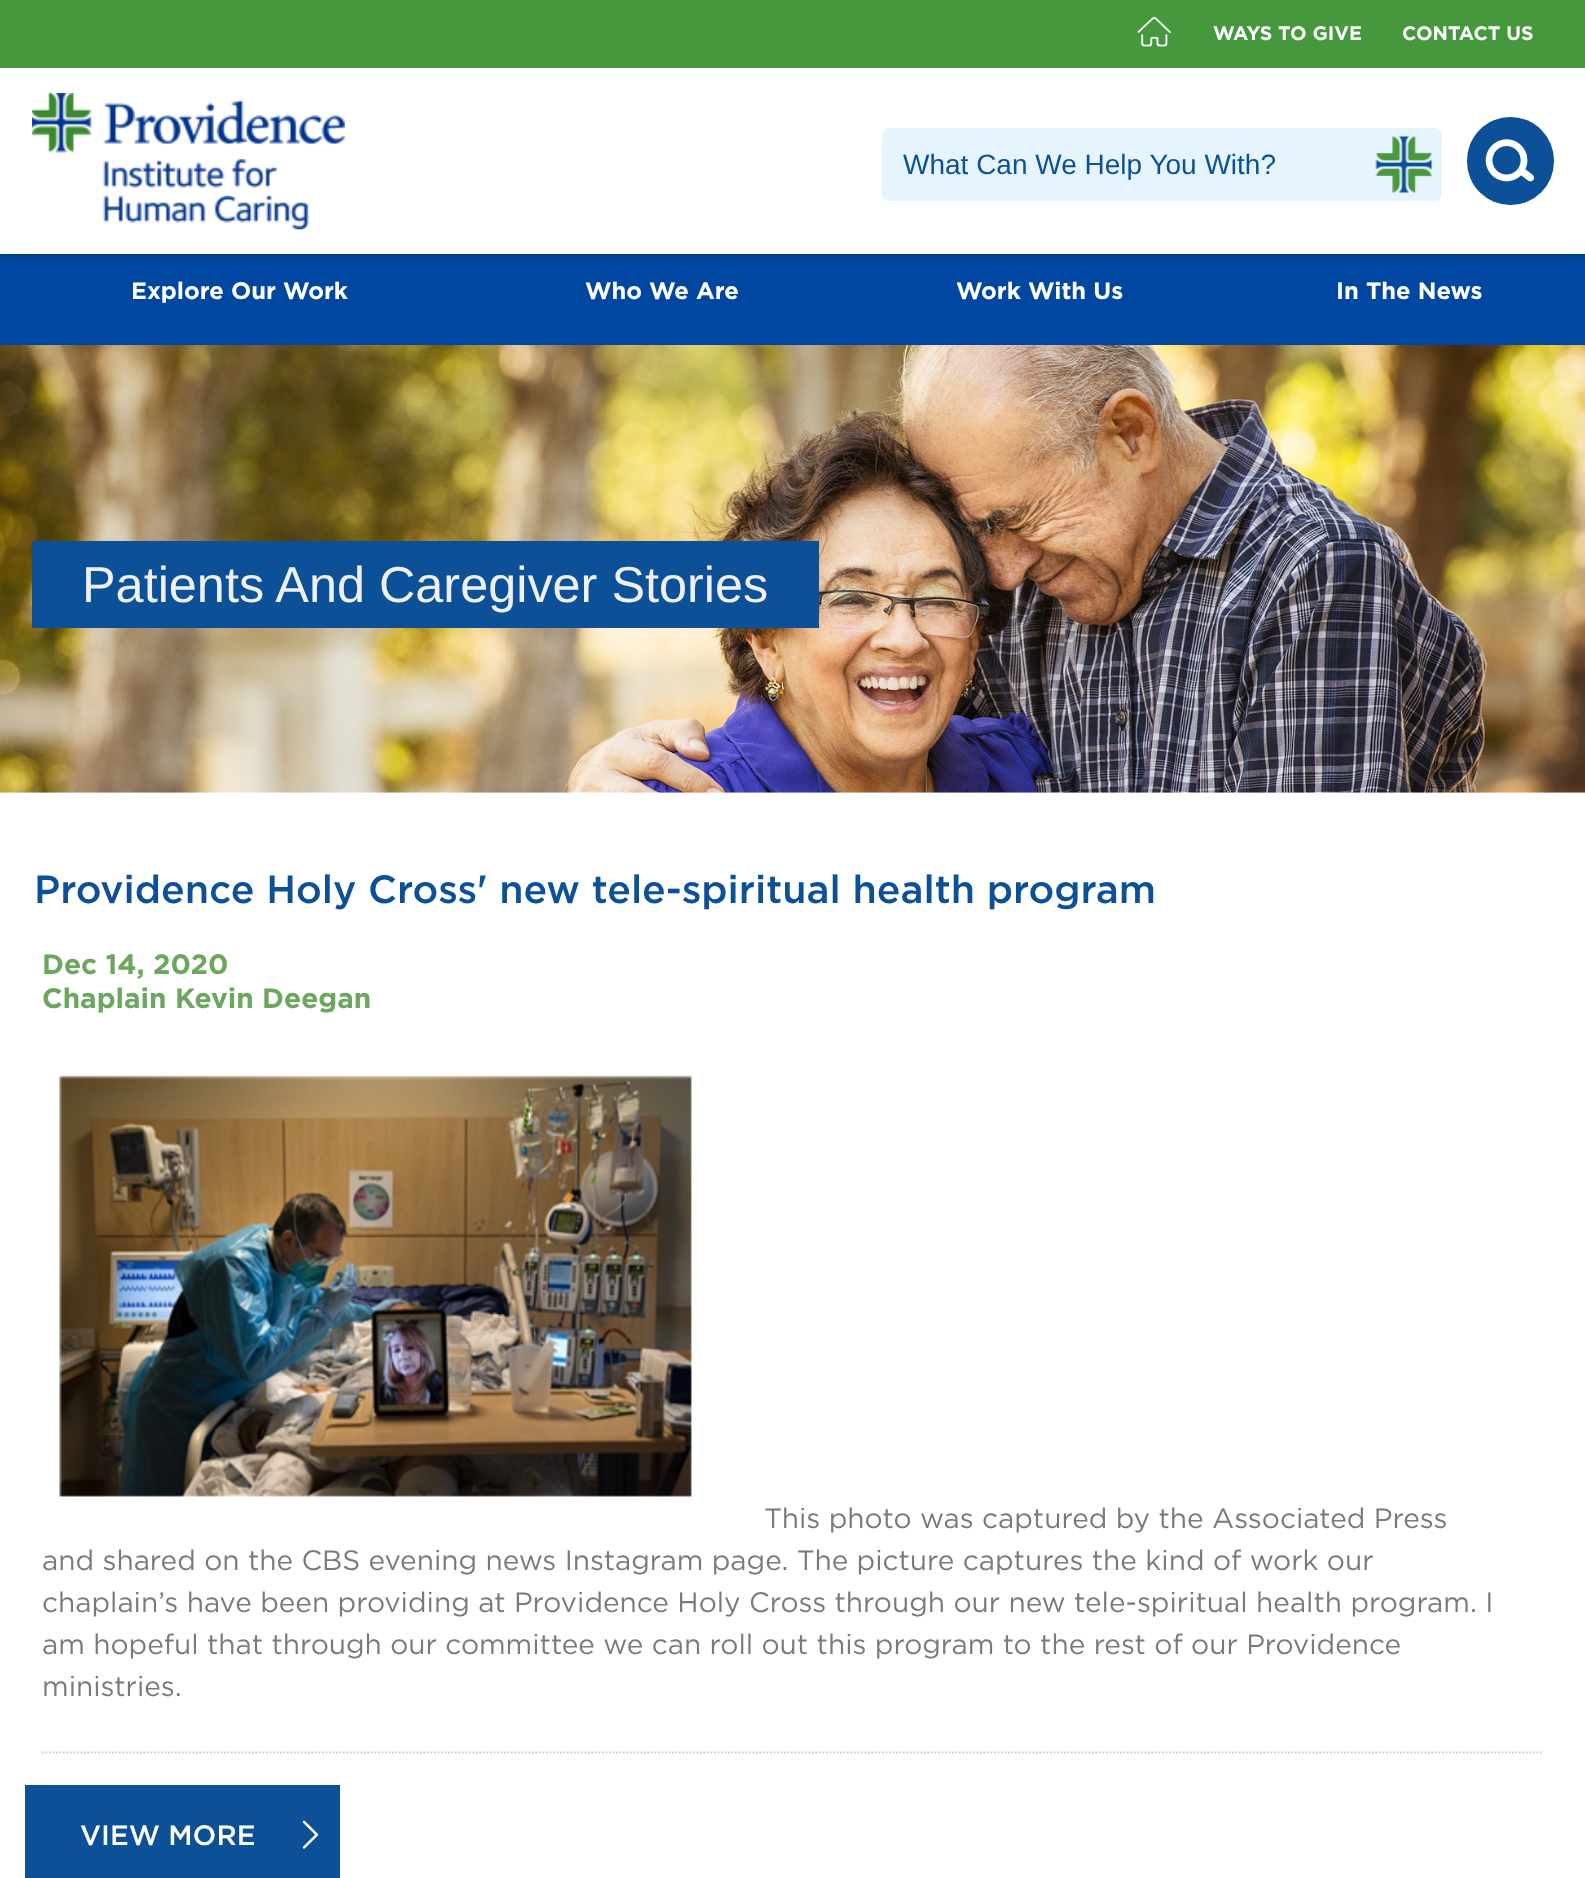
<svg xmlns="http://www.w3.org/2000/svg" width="1585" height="1878">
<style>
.a{font:bold 19.5px Gotham;fill:#fff}
.b{font:28px Liberation Sans;fill:#0c5098}
.c{font:bold 23.75px Gotham;fill:#fff}
.d{font:50.4px Liberation Sans;fill:#f0f0f0}
.e{font:500 39.2px Gotham;fill:#0c5098}
.f{font:bold 28px Gotham;fill:#6ca75e}
.g{font:28px Gotham;fill:#7a7a7a}
.h{font:500 28px Gotham;fill:#fff}
</style>
<rect width="100%" height="100%" fill="#fff"/>
<path fill="#45983c" d="M0 0h1585v68H0z"/>
<image href="1.png" x="1137" y="17" width="34" height="30"/>
<path fill="#0047a1" d="M0 254h1585v91H0z"/>
<path fill="#00000033" filter="blur(2.5px)" d="M0 72h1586v185H0z"/>
<path fill="#fff" d="M0 68h1585v186H0z"/>
<image href="2.png" x="32" y="93" width="313" height="137"/>
<rect fill="#e6f4fe" x="882" y="128" width="560" height="73" rx="7"/>
<image href="3.png" x="1375" y="136" width="57" height="57"/>
<rect fill="#0c5098" x="1467" y="117" width="87" height="88" rx="43.5"/>
<image href="4.png" x="1485" y="139" width="49" height="43"/>
<image href="5.png" x="0" y="345" width="1585" height="448"/>
<path fill="#0c5098" d="M32 541h787v87H32z"/>
<image href="6.png" x="59" y="1075" width="633" height="422"/>
<path fill="none" stroke="#ccc" stroke-width="1.8" stroke-dasharray="1.75 1.75" d="M42 1752.5h1501.5"/>
<path fill="#0c5098" d="M25 1785h315v93H25z"/>
<image href="7.png" x="302" y="1820" width="17" height="29"/>
<text class="a" x="1213" y="40">WAYS TO GIVE</text>
<text class="a" x="1402" y="40">CONTACT US</text>
<text class="b" x="903" y="174">What Can We Help You With?</text>
<text class="c" x="131" y="299">Explore Our Work</text>
<text class="c" x="585" y="299">Who We Are</text>
<text class="c" x="956" y="299">Work With Us</text>
<text class="c" x="1336" y="299">In The News</text>
<text class="d" x="82" y="602">Patients And Caregiver Stories</text>
<text class="e" x="34" y="903">Providence Holy Cross' new tele-spiritual health program</text>
<text class="f" x="42" y="974">Dec 14, 2020</text>
<text class="f" x="42" y="1008">Chaplain Kevin Deegan</text>
<text class="g" x="764" y="1528">This photo was captured by the Associated Press</text>
<text class="g" x="42" y="1570">and shared on the CBS evening news Instagram page. The picture captures the kind of work our</text>
<text class="g" x="42" y="1612">chaplain’s have been providing at Providence Holy Cross through our new tele-spiritual health program. I</text>
<text class="g" x="42" y="1654">am hopeful that through our committee we can roll out this program to the rest of our Providence</text>
<text class="g" x="42" y="1696">ministries.</text>
<text class="h" x="80" y="1845">VIEW MORE</text>
</svg>
